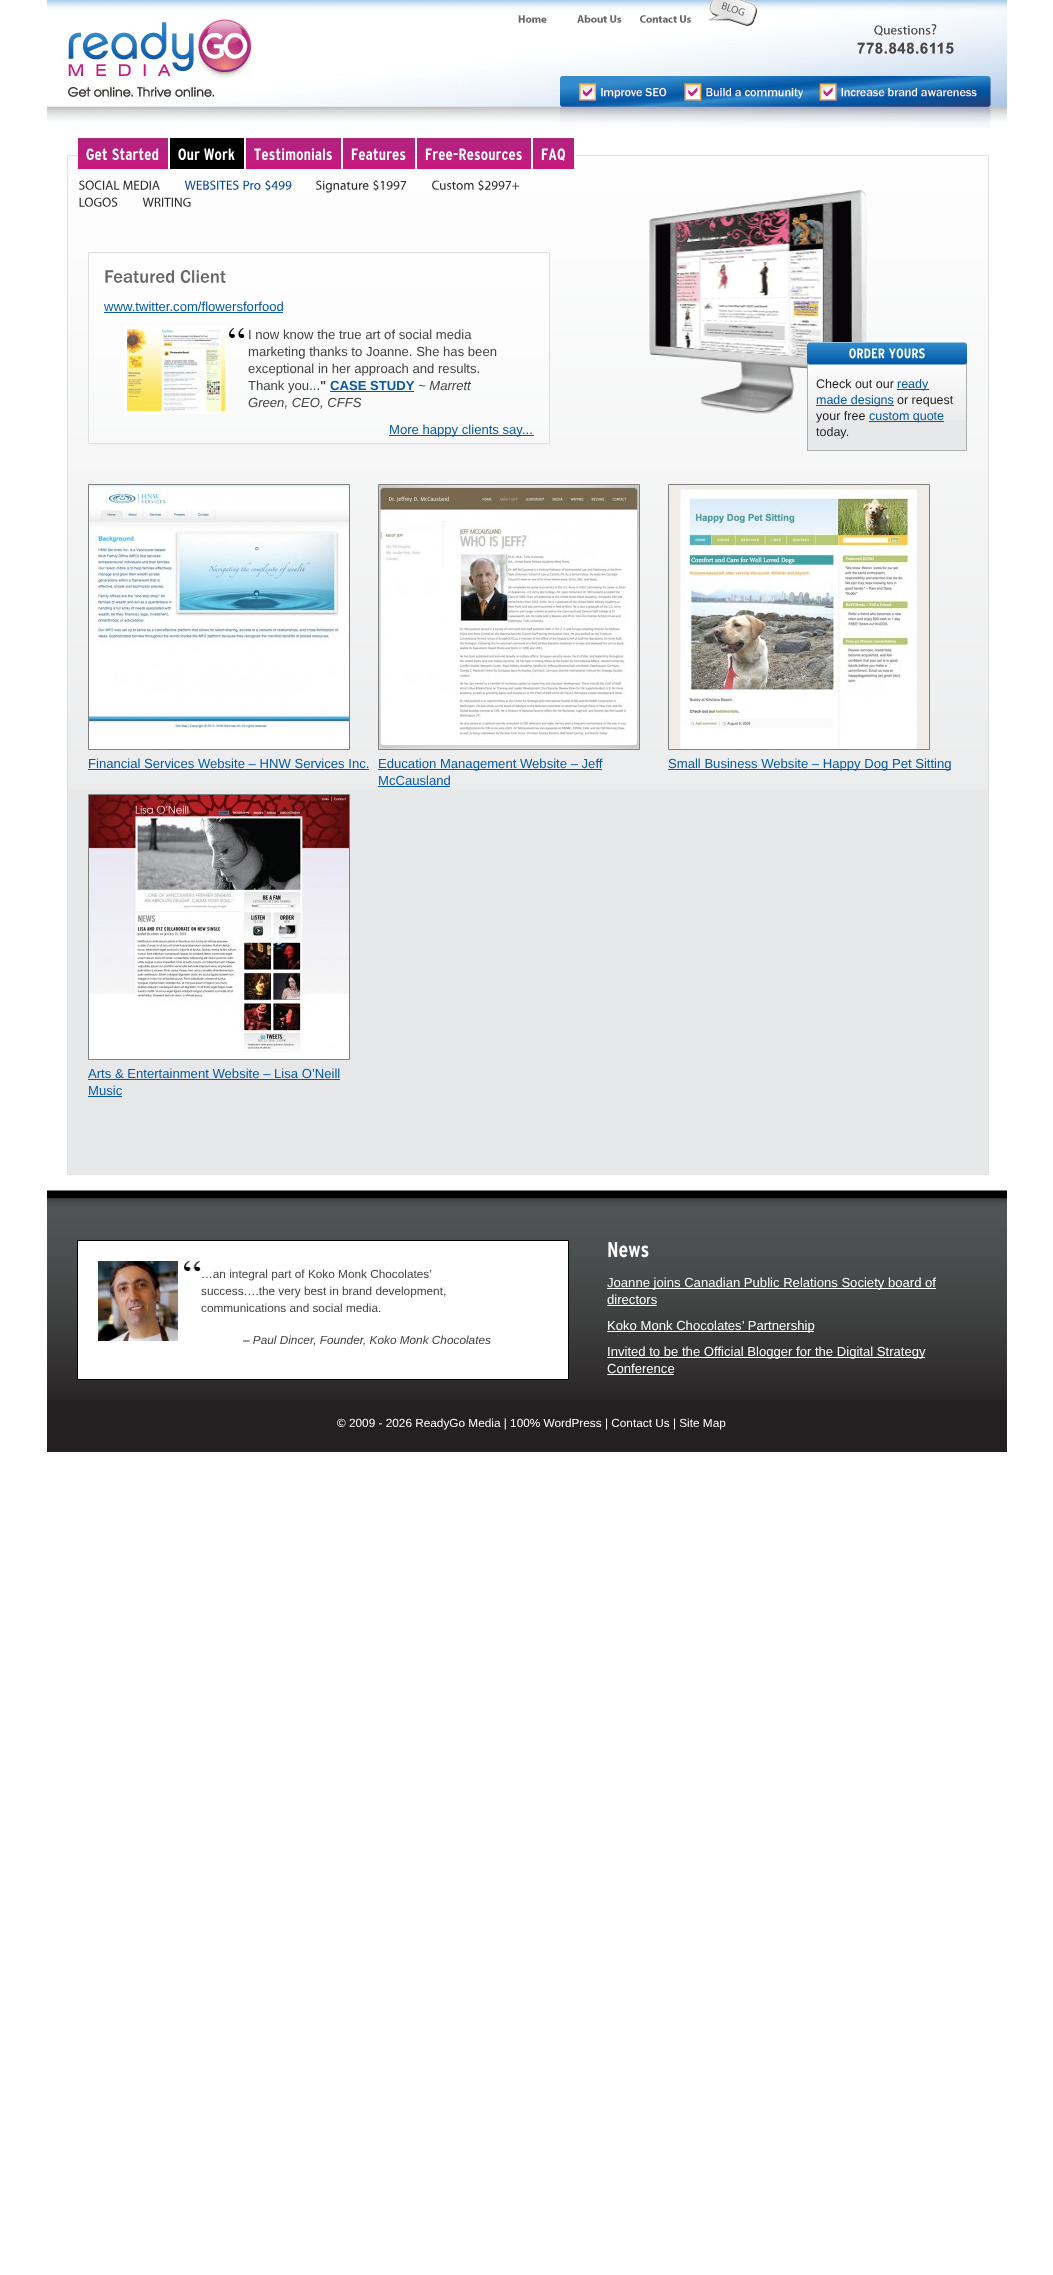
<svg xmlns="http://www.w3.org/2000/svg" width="1053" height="2275">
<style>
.a{font:13.1px Liberation Sans;fill:#065aa7}
.b{font:13.1px Liberation Sans;fill:#444}
.c{font:bold 13.1px Liberation Sans;fill:#444}
.d{font:bold 13.1px Liberation Sans;fill:#065aa7}
.e{font:italic 13.1px Liberation Sans;fill:#444}
.f{font:12.5px Liberation Sans;fill:#231f20}
.g{font:12.5px Liberation Sans;fill:#065aa7}
.h{font:11.8px Liberation Sans;fill:#444}
.i{font:italic 11.8px Liberation Sans;fill:#444}
.j{font:13.1px Liberation Sans;fill:#fff}
.k{font:11.8px Liberation Sans;fill:#fff}
</style>
<rect width="100%" height="100%" fill="#fff"/>
<image href="1.png" x="47" y="0" width="960" height="128"/>
<image href="2.png" x="518" y="15" width="29" height="8"/>
<image href="3.png" x="577" y="15" width="45" height="8"/>
<image href="4.png" x="640" y="15" width="51" height="8"/>
<image href="5.png" x="708" y="0" width="49" height="26"/>
<path fill="#e7e8e9" d="M68 789h920v385H68z"/>
<image href="6.png" x="68" y="156" width="920" height="633"/>
<path fill="none" stroke="#e0e0e0" d="M67.5 155.5h921v1019H67.5z"/>
<path fill="#ce157d" d="M78 168h90v1H78z"/>
<image href="7.png" x="78" y="138" width="90" height="30"/>
<path fill="#fff" d="M168 155h2v1H168z"/>
<image href="8.png" x="86" y="148" width="21" height="12"/>
<image href="9.png" x="112" y="148" width="47" height="12"/>
<path fill="#000" d="M170 138h74v31H170z"/>
<path fill="#fff" d="M244 155h2v1H244z"/>
<image href="10.png" x="178" y="148" width="22" height="12"/>
<image href="11.png" x="204" y="148" width="31" height="12"/>
<path fill="#ce157d" d="M246 168h95v1H246z"/>
<image href="12.png" x="246" y="138" width="95" height="30"/>
<path fill="#fff" d="M341 155h2v1H341z"/>
<image href="13.png" x="254" y="148" width="78" height="12"/>
<path fill="#ce157d" d="M343 168h72v1H343z"/>
<image href="14.png" x="343" y="138" width="72" height="30"/>
<path fill="#fff" d="M415 155h2v1H415z"/>
<image href="15.png" x="351" y="148" width="55" height="12"/>
<path fill="#ce157d" d="M417 168h114v1H417z"/>
<image href="16.png" x="417" y="138" width="114" height="30"/>
<path fill="#fff" d="M531 155h2v1H531z"/>
<image href="17.png" x="425" y="148" width="97" height="12"/>
<path fill="#ce157d" d="M533 168h41v1H533z"/>
<image href="18.png" x="533" y="138" width="41" height="30"/>
<path fill="#fff" d="M574 155h2v1H574z"/>
<image href="19.png" x="541" y="148" width="25" height="13"/>
<image href="20.png" x="79" y="180" width="41" height="10"/>
<image href="21.png" x="123" y="180" width="37" height="10"/>
<image href="22.png" x="184" y="180" width="55" height="10"/>
<image href="23.png" x="243" y="180" width="18" height="10"/>
<image href="24.png" x="265" y="180" width="27" height="11"/>
<image href="25.png" x="316" y="180" width="53" height="13"/>
<image href="26.png" x="373" y="180" width="34" height="11"/>
<image href="27.png" x="432" y="180" width="42" height="10"/>
<image href="28.png" x="478" y="180" width="42" height="11"/>
<image href="29.png" x="79" y="197" width="39" height="10"/>
<image href="30.png" x="142" y="197" width="49" height="10"/>
<image href="31.png" x="89" y="253" width="460" height="190"/>
<path fill="none" stroke="#e0e0e0" d="M88.5 252.5h461v191H88.5z"/>
<image href="32.png" x="105" y="270" width="69" height="13"/>
<image href="33.png" x="180" y="270" width="46" height="13"/>
<path fill="#065aa7" d="M104 312h179v1H104z"/>
<image href="34.png" x="229" y="328" width="16" height="10"/>
<path fill="none" stroke="#fff" stroke-width="3" d="M125.5 327.5h101v85H125.5z"/>
<image href="35.png" x="127" y="329" width="98" height="82"/>
<path fill="#065aa7" d="M330 391h84v1H330z"/>
<path fill="#065aa7" d="M389 435h145v1H389z"/>
<image href="36.png" x="649" y="190" width="218" height="224"/>
<image href="37.png" x="807" y="342" width="160" height="30"/>
<image href="38.png" x="849" y="348" width="36" height="11"/>
<image href="39.png" x="889" y="348" width="36" height="11"/>
<path fill="#e7e8e9" d="M808 420h158v30H808z"/>
<image href="40.png" x="808" y="372" width="158" height="48"/>
<path fill="#aeaeae" d="M966 372h1v79H966z"/>
<path fill="#aeaeae" d="M807 450h160v1H807z"/>
<path fill="#aeaeae" d="M807 372h1v79H807z"/>
<path fill="#065aa7" d="M897 389h32v1H897z"/>
<path fill="#065aa7" d="M816 405h78v1H816z"/>
<path fill="#065aa7" d="M869 421h75v1H869z"/>
<path fill="none" stroke="#808080" d="M88.5 484.5h261v265H88.5z"/>
<image href="41.png" x="89" y="485" width="260" height="264"/>
<path fill="#065aa7" d="M88 769h281v1H88z"/>
<path fill="none" stroke="#808080" d="M378.5 484.5h261v265H378.5z"/>
<image href="42.png" x="379" y="485" width="260" height="264"/>
<path fill="#065aa7" d="M378 769h224v1H378z"/>
<path fill="#065aa7" d="M378 786h72v1H378z"/>
<path fill="none" stroke="#808080" d="M668.5 484.5h261v265H668.5z"/>
<image href="43.png" x="669" y="485" width="260" height="264"/>
<path fill="#065aa7" d="M668 769h283v1H668z"/>
<path fill="none" stroke="#808080" d="M88.5 794.5h261v265H88.5z"/>
<image href="44.png" x="89" y="795" width="260" height="264"/>
<path fill="#065aa7" d="M88 1079h252v1H88z"/>
<path fill="#065aa7" d="M88 1096h34v1H88z"/>
<path fill="#242021" d="M47 1400h960v52H47z"/>
<image href="45.png" x="47" y="1190" width="960" height="210"/>
<path fill="#fff" stroke="#000" d="M77.5 1240.5h491v139H77.5z"/>
<image href="46.png" x="98" y="1261" width="80" height="80"/>
<image href="47.png" x="184" y="1261" width="17" height="10"/>
<image href="48.png" x="608" y="1242" width="41" height="16"/>
<path fill="#fff" d="M607 1288h329v1H607z"/>
<path fill="#fff" d="M607 1305h50v1H607z"/>
<path fill="#fff" d="M607 1331h207v1H607z"/>
<path fill="#fff" d="M607 1357h318v1H607z"/>
<path fill="#fff" d="M607 1374h67v1H607z"/>
<text class="a" x="104" y="311">www.twitter.com/flowersforfood</text>
<text class="b" x="248" y="339">I now know the true art of social media</text>
<text class="b" x="248" y="356">marketing thanks to Joanne. She has been</text>
<text class="b" x="248" y="373">exceptional in her approach and results.</text>
<text class="b" x="248" y="390">Thank you...</text>
<text class="c" x="320" y="390">"</text>
<text class="d" x="330" y="390">CASE STUDY</text>
<text class="e" x="418" y="390">~ Marrett</text>
<text class="e" x="248" y="407">Green, CEO, CFFS</text>
<text class="a" x="389" y="434">More happy clients say...</text>
<text class="f" x="816" y="388">Check out our</text>
<text class="g" x="897" y="388">ready</text>
<text class="g" x="816" y="404">made designs</text>
<text class="f" x="897" y="404">or request</text>
<text class="f" x="816" y="420">your free</text>
<text class="g" x="869" y="420">custom quote</text>
<text class="f" x="816" y="436">today.</text>
<text class="a" x="88" y="768">Financial Services Website – HNW Services Inc.</text>
<text class="a" x="378" y="768">Education Management Website – Jeff</text>
<text class="a" x="378" y="785">McCausland</text>
<text class="a" x="668" y="768">Small Business Website – Happy Dog Pet Sitting</text>
<text class="a" x="88" y="1078">Arts &amp; Entertainment Website – Lisa O’Neill</text>
<text class="a" x="88" y="1095">Music</text>
<text class="h" x="201" y="1278">…an integral part of Koko Monk Chocolates’</text>
<text class="h" x="201" y="1295">success….the very best in brand development,</text>
<text class="h" x="201" y="1312">communications and social media.</text>
<text class="i" x="243" y="1344">– Paul Dincer, Founder, Koko Monk Chocolates</text>
<text class="j" x="607" y="1287">Joanne joins Canadian Public Relations Society board of</text>
<text class="j" x="607" y="1304">directors</text>
<text class="j" x="607" y="1330">Koko Monk Chocolates’ Partnership</text>
<text class="j" x="607" y="1356">Invited to be the Official Blogger for the Digital Strategy</text>
<text class="j" x="607" y="1373">Conference</text>
<text class="k" x="337" y="1427">© 2009 - 2026 ReadyGo Media | 100% WordPress | Contact Us | Site Map</text>
</svg>
